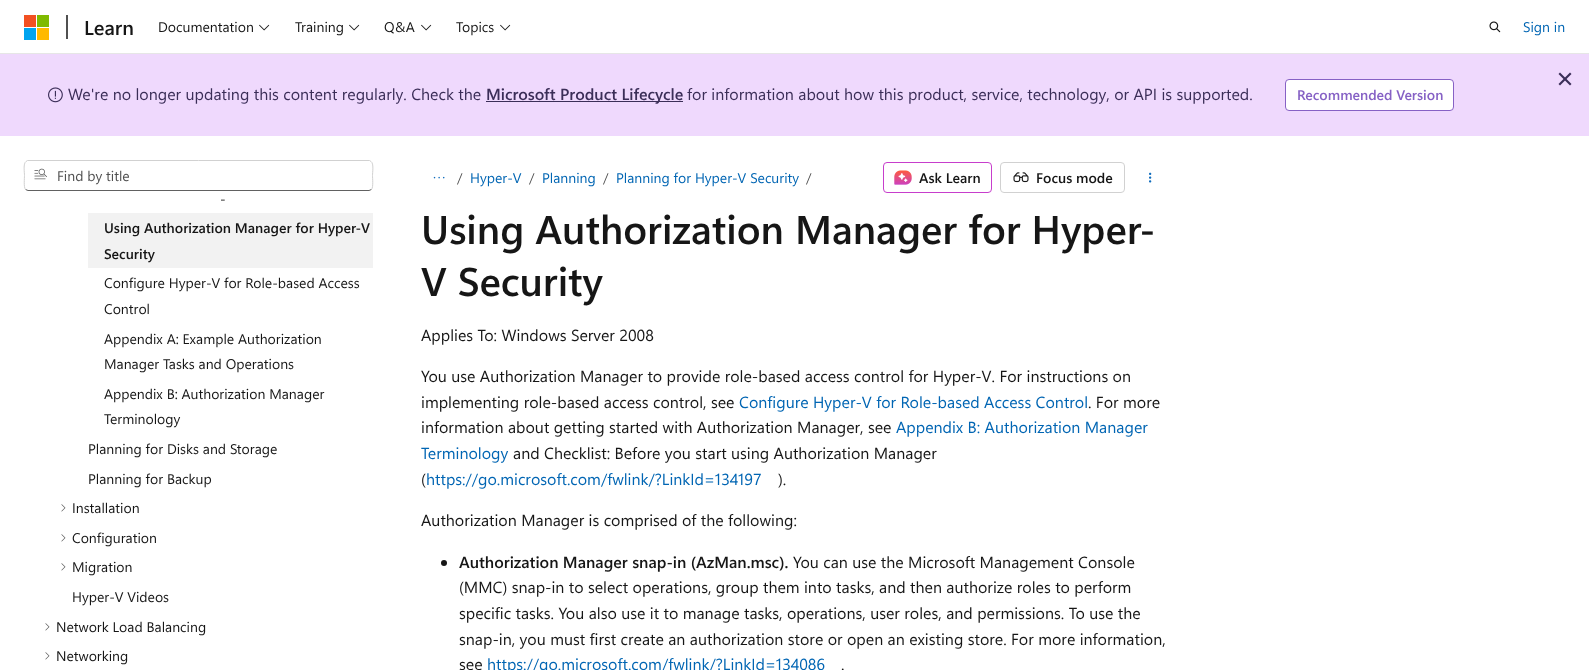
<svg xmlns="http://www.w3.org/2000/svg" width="1589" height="670">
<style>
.a{font:600 20px Segoe UI;fill:#161616}
.b{font:14px Segoe UI;fill:#161616}
.c{font:14px Segoe UI;fill:#0065b3}
.d{font:16px Segoe UI;fill:#3b2e58}
.e{font:600 16px Segoe UI;fill:#3b2e58}
.f{font:600 14px Segoe UI;fill:#8661c5}
.g{font:14px Segoe UI;fill:#505050}
.h{font:600 14px Segoe UI;fill:#161616}
.i{font:600 40px Segoe UI;fill:#161616}
.j{font:16px Segoe UI;fill:#161616}
.k{font:16px Segoe UI;fill:#0065b3}
.l{font:600 16px Segoe UI;fill:#161616}
</style>
<rect width="100%" height="100%" fill="#fff"/>
<path fill="#e6e6e6" d="M0 53h1589v1H0z"/>
<path fill="#f25022" d="M24 15h12v12H24z"/>
<path fill="#7fba00" d="M37 15h12v12H37z"/>
<path fill="#00a4ef" d="M24 28h12v12H24z"/>
<path fill="#ffb900" d="M37 28h12v12H37z"/>
<path fill="#505050" d="M66 15h2v24H66z"/>
<image href="1.png" x="259" y="24" width="11" height="7"/>
<image href="1.png" x="349" y="24" width="11" height="7"/>
<image href="1.png" x="421" y="24" width="11" height="7"/>
<image href="1.png" x="500" y="24" width="11" height="7"/>
<image href="2.png" x="1489" y="21" width="12" height="12"/>
<path fill="#efd9fd" d="M0 54h1589v82H0z"/>
<path fill="#3b2e58" d="M1560 72.5l11.5 11.5l-1.5 1.5l-11.5-11.5z"/>
<path fill="#3b2e58" d="M1570 72.5l1.5 1.5l-11.5 11.5l-1.5-1.5z"/>
<image href="3.png" x="48" y="87" width="15" height="16"/>
<path fill="#3b2e58" d="M486 101h197v1H486z"/>
<rect fill="#fff" stroke="#8661c5" x="1285.5" y="79.5" width="168" height="31" rx="3.5"/>
<path fill="none" stroke="#616161" d="M371.5 189.5l-2.5 1h-341l-2.5-1"/>
<path fill="none" stroke="#d1d1d1" d="M25.5 189.5c-2-2.5-1-11-1-14c0-3-1.5-12 1.5-14l1.5-1h171h171l1.5 1c3 2 1.5 11 1.5 14c0 3 1 11.5-1 14"/>
<image href="4.png" x="34" y="168" width="13" height="12"/>
<path fill="#f2f2f2" d="M88 213h285v55H88z"/>
<image href="5.png" x="61" y="504" width="5" height="8"/>
<image href="5.png" x="61" y="534" width="5" height="8"/>
<image href="5.png" x="61" y="563" width="5" height="8"/>
<image href="5.png" x="45" y="623" width="5" height="8"/>
<image href="5.png" x="45" y="652" width="5" height="8"/>
<image href="6.png" x="433" y="176" width="12" height="3"/>
<rect fill="none" stroke="#c73ecc" x="883.5" y="162.5" width="108" height="30" rx="3.5"/>
<image href="7.png" x="894" y="170" width="18" height="15"/>
<rect fill="none" stroke="#d1d1d1" x="1000.5" y="162.5" width="124" height="30" rx="3.5"/>
<image href="8.png" x="1013" y="172" width="16" height="11"/>
<image href="9.png" x="1149" y="172" width="3" height="11"/>
<circle fill="#161616" cx="444" cy="563" r="3"/>
<text class="a" x="84" y="35">Learn</text>
<text class="b" x="158" y="32">Documentation</text>
<text class="b" x="295" y="32">Training</text>
<text class="b" x="384" y="32">Q&amp;A</text>
<text class="b" x="456" y="32">Topics</text>
<text class="c" x="1523" y="32">Sign in</text>
<text class="d" x="68" y="100">We're no longer updating this content regularly. Check the</text>
<text class="e" x="486" y="100">Microsoft Product Lifecycle</text>
<text class="d" x="687" y="100">for information about how this product, service, technology, or API is supported.</text>
<text class="f" x="1297" y="100">Recommended Version</text>
<text class="g" x="57" y="181">Find by title</text>
<text class="b" x="220" y="204">-</text>
<text class="h" x="104" y="233">Using Authorization Manager for Hyper-V</text>
<text class="h" x="104" y="259">Security</text>
<text class="b" x="104" y="288">Configure Hyper-V for Role-based Access</text>
<text class="b" x="104" y="314">Control</text>
<text class="b" x="104" y="344">Appendix A: Example Authorization</text>
<text class="b" x="104" y="369">Manager Tasks and Operations</text>
<text class="b" x="104" y="399">Appendix B: Authorization Manager</text>
<text class="b" x="104" y="424">Terminology</text>
<text class="b" x="88" y="454">Planning for Disks and Storage</text>
<text class="b" x="88" y="484">Planning for Backup</text>
<text class="b" x="72" y="513">Installation</text>
<text class="b" x="72" y="543">Configuration</text>
<text class="b" x="72" y="572">Migration</text>
<text class="b" x="72" y="602">Hyper-V Videos</text>
<text class="b" x="56" y="632">Network Load Balancing</text>
<text class="b" x="56" y="661">Networking</text>
<text class="g" x="457" y="183">/</text>
<text class="c" x="470" y="183">Hyper-V</text>
<text class="g" x="529" y="183">/</text>
<text class="c" x="542" y="183">Planning</text>
<text class="g" x="603" y="183">/</text>
<text class="c" x="616" y="183">Planning for Hyper-V Security</text>
<text class="g" x="806" y="183">/</text>
<text class="h" x="919" y="183">Ask Learn</text>
<text class="h" x="1036" y="183">Focus mode</text>
<text class="i" x="421" y="244">Using Authorization Manager for Hyper-</text>
<text class="i" x="421" y="296">V Security</text>
<text class="j" x="421" y="341">Applies To: Windows Server 2008</text>
<text class="j" x="421" y="382">You use Authorization Manager to provide role-based access control for Hyper-V. For instructions on</text>
<text class="j" x="421" y="408">implementing role-based access control, see</text>
<text class="k" x="739" y="408">Configure Hyper-V for Role-based Access Control</text>
<text class="j" x="1088" y="408">. For more</text>
<text class="j" x="421" y="433">information about getting started with Authorization Manager, see</text>
<text class="k" x="896" y="433">Appendix B: Authorization Manager</text>
<text class="k" x="421" y="459">Terminology</text>
<text class="j" x="513" y="459">and Checklist: Before you start using Authorization Manager</text>
<text class="j" x="421" y="485">(</text>
<text class="k" x="426" y="485">https://go.microsoft.com/fwlink/?LinkId=134197</text>
<text class="j" x="778" y="485">).</text>
<text class="j" x="421" y="526">Authorization Manager is comprised of the following:</text>
<text class="l" x="459" y="568">Authorization Manager snap-in (AzMan.msc).</text>
<text class="j" x="793" y="568">You can use the Microsoft Management Console</text>
<text class="j" x="459" y="593">(MMC) snap-in to select operations, group them into tasks, and then authorize roles to perform</text>
<text class="j" x="459" y="619">specific tasks. You also use it to manage tasks, operations, user roles, and permissions. To use the</text>
<text class="j" x="459" y="645">snap-in, you must first create an authorization store or open an existing store. For more information,</text>
<text class="j" x="459" y="670">see</text>
<text class="k" x="487" y="670">https://go.microsoft.com/fwlink/?LinkId=134086</text>
<text class="j" x="841" y="670">.</text>
</svg>
